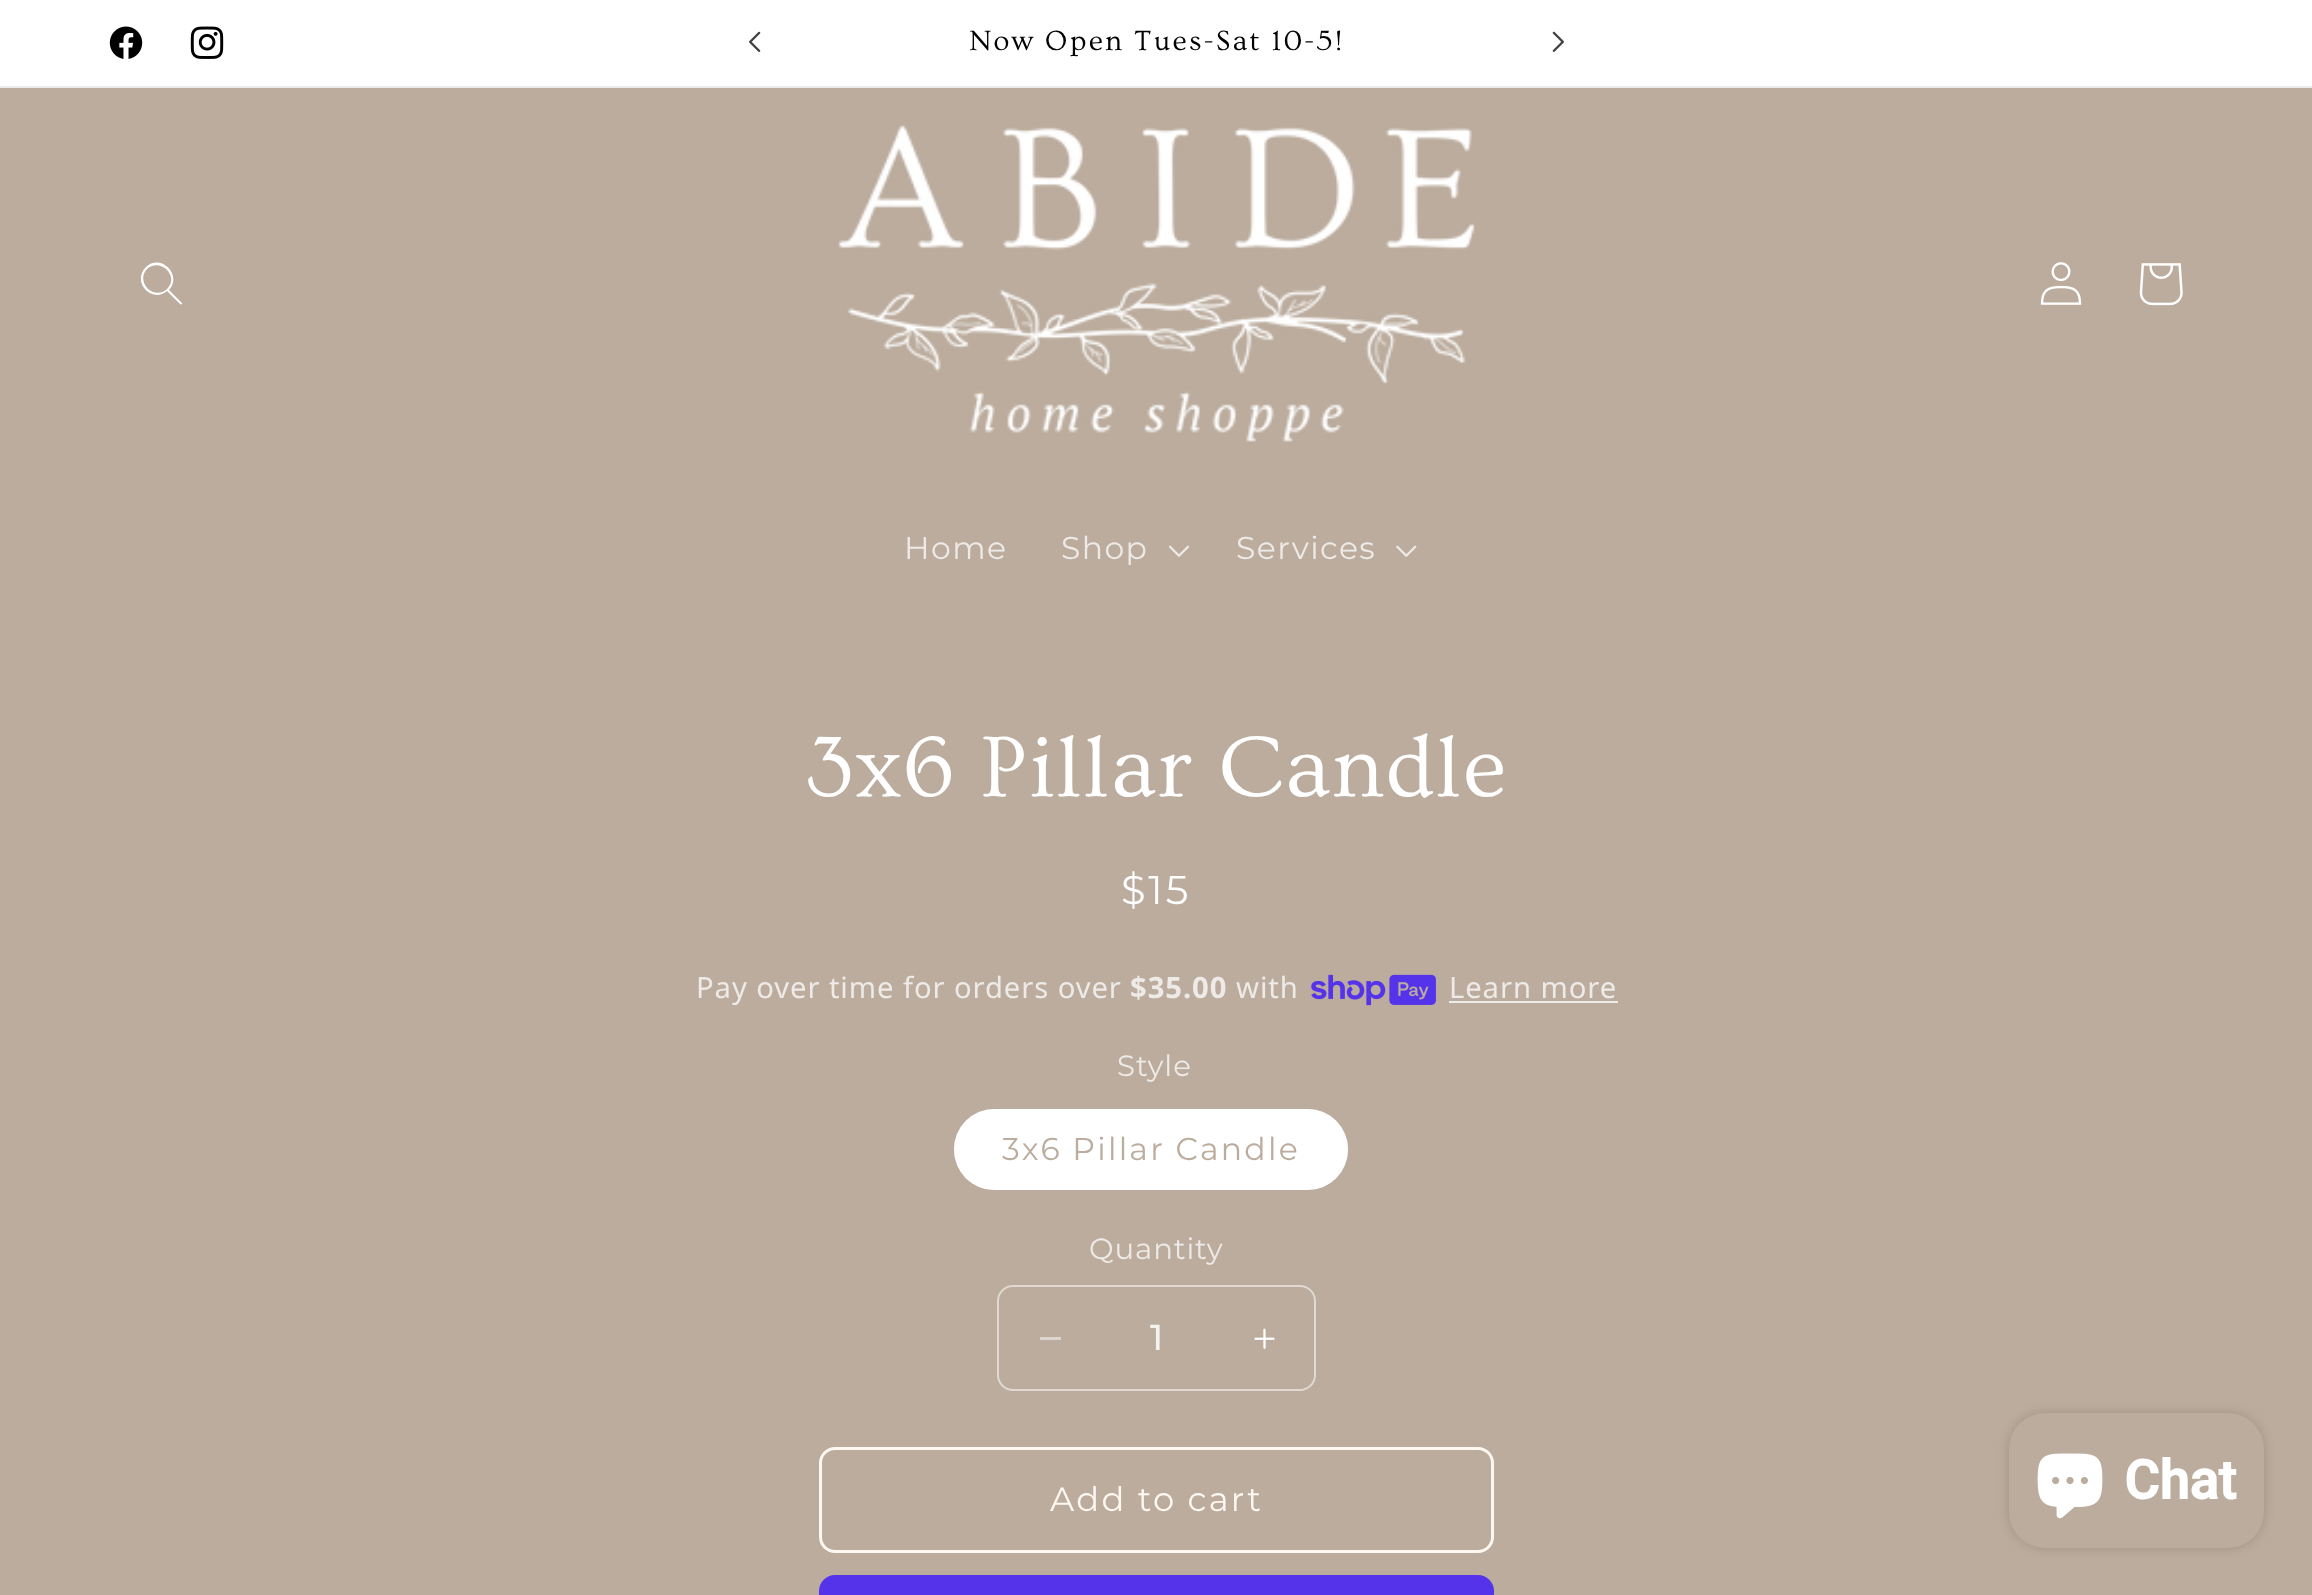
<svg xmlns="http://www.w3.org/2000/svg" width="2312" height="1595">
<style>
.a{font:29.25px Ovo;letter-spacing:2.25px;fill:#000}
.b{font:100 31.5px Montserrat;letter-spacing:1.4px;fill:#eeeae7}
.c{font:90px Ovo;letter-spacing:1.4px;fill:#fff}
.d{font:100 40px Montserrat;letter-spacing:3px;fill:#fff}
.e{font:29.25px Noto Sans;letter-spacing:0.9px;fill:#eeeae7}
.f{font:bold 29.25px Noto Sans;letter-spacing:0.9px;fill:#eeeae7}
.g{font:100 29.25px Montserrat;letter-spacing:0.9px;fill:#eeeae7}
.h{font:100 31.5px Montserrat;letter-spacing:2.25px;fill:#bbac9d}
.i{font:100 36px 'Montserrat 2';fill:#f5f3f0}
.j{font:100 33.75px Montserrat;letter-spacing:2.25px;fill:#fff8f1}
.k{font:bold 54px Roboto;fill:#fff}
</style>
<rect width="100%" height="100%" fill="#bbac9d"/>
<path fill="#fff" d="M0 0h2312v86H0z"/>
<path fill="#ebebeb" d="M0 86h2312v2H0z"/>
<image href="1.png" x="109" y="26" width="34" height="33"/>
<image href="2.png" x="190" y="26" width="34" height="33"/>
<image href="3.png" x="749" y="31" width="12" height="21"/>
<image href="4.png" x="1552" y="31" width="12" height="21"/>
<path fill="#fff" fill-rule="evenodd" d="M167 289c-13 12-32-7-20-20c13-12 33 7 20 20m0 2c-15 13-36-9-21-24c14-14 37 7 23 23l13 13c1 1-1 2-2 1z"/>
<image href="5.png" x="838" y="125" width="637" height="317"/>
<image href="6.png" x="2040" y="262" width="42" height="43"/>
<image href="7.png" x="2139" y="263" width="44" height="43"/>
<image href="8.png" x="1168" y="545" width="22" height="12"/>
<image href="9.png" x="1396" y="545" width="21" height="12"/>
<image href="10.png" x="1311" y="974" width="125" height="32"/>
<path fill="#eeeae7" d="M1449 1001h169v2H1449z"/>
<rect fill="#fff" x="954" y="1109" width="394" height="81" rx="40.5"/>
<rect fill="none" stroke="#ffffff8c" stroke-width="2" x="955" y="1110" width="392" height="79" rx="39.5"/>
<path fill="#ddd6ce" d="M1040 1337h21v3H1040z"/>
<image href="11.png" x="1254" y="1328" width="21" height="21"/>
<rect fill="none" stroke="#e0dad3" stroke-width="2" x="998" y="1286" width="317" height="104" rx="15"/>
<rect fill="none" stroke="#fff8f1" stroke-width="3" x="820.5" y="1448.5" width="672" height="103" rx="14.5"/>
<rect fill="#5433eb" x="819" y="1575" width="675" height="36" rx="16"/>
<rect fill="#00000026" filter="blur(5.5px)" x="2009" y="1413" width="255" height="135" rx="36"/>
<rect fill="#bbac9d" x="2009" y="1413" width="255" height="135" rx="36"/>
<image href="12.png" x="2037" y="1453" width="66" height="66"/>
<text class="a" x="969" y="50">Now Open Tues-Sat 10-5!</text>
<text class="b" x="904" y="559">Home</text>
<text class="b" x="1061" y="559">Shop</text>
<text class="b" x="1236" y="559">Services</text>
<text class="c" x="806" y="796">3x6 Pillar Candle</text>
<text class="d" x="1121" y="904">$15</text>
<text class="e" x="696" y="998">Pay over time for orders over</text>
<text class="f" x="1130" y="998">$35.00</text>
<text class="e" x="1236" y="998">with</text>
<text class="e" x="1449" y="998">Learn more</text>
<text class="g" x="1117" y="1076">Style</text>
<text class="h" x="1002" y="1160">3x6 Pillar Candle</text>
<text class="g" x="1089" y="1259">Quantity</text>
<text class="i" x="1150" y="1350">1</text>
<text class="j" x="1050" y="1511">Add to cart</text>
<text class="k" x="2124" y="1499">Chat</text>
</svg>
